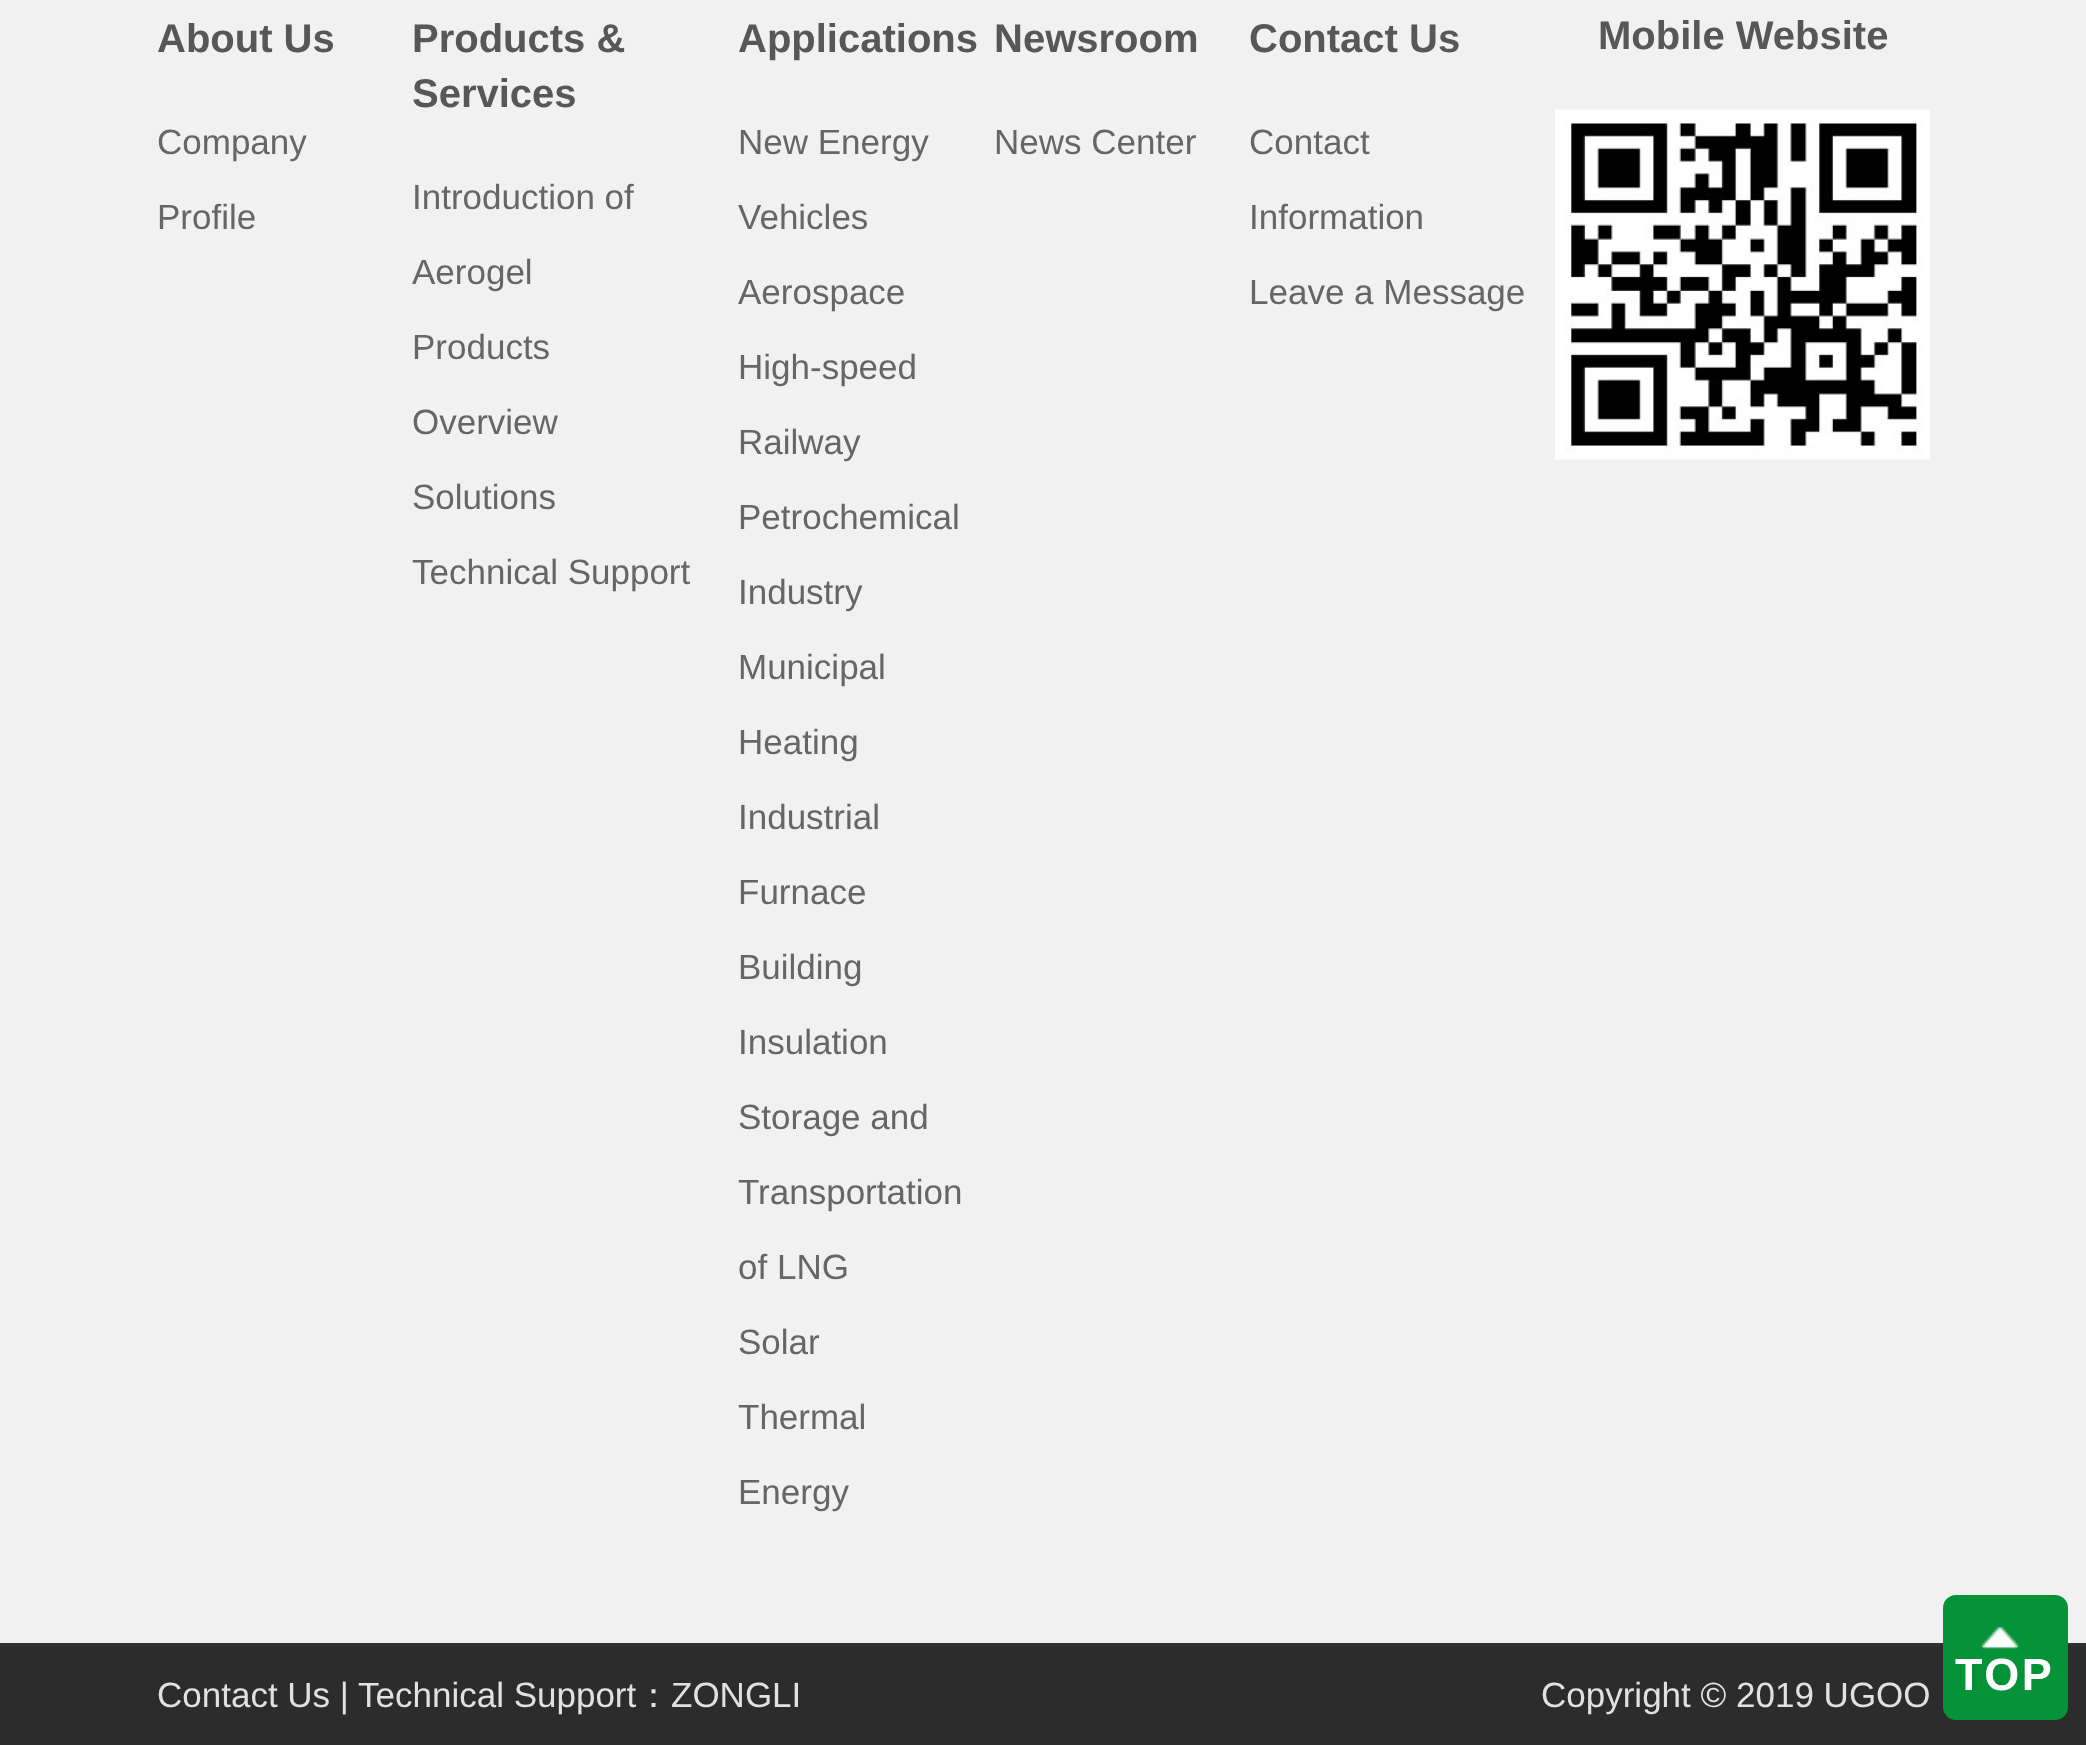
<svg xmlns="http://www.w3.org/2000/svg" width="2086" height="1745">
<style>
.a{font:bold 40px Liberation Sans;fill:#585757}
.b{font:35px Liberation Sans;fill:#666}
.c{font:bold 45px Liberation Sans;letter-spacing:2.5px;fill:#fff}
.d{font:35px Liberation Sans;fill:#e1e1e1}
.e{font:500 35px WenQuanYi Zen Hei;fill:#e1e1e1}
</style>
<rect width="100%" height="100%" fill="#f1f1f1"/>
<image href="1.png" x="1555" y="109" width="375" height="351"/>
<path fill="#2c2c2c" d="M0 1646h2086v99H0z"/>
<path fill="#333" d="M0 1643h2086v3H0z"/>
<rect fill="#069238" x="1943" y="1595" width="125" height="125" rx="13"/>
<image href="2.png" x="1981" y="1626" width="38" height="23"/>
<text class="a" x="157" y="52">About Us</text>
<text class="b" x="157" y="154">Company</text>
<text class="b" x="157" y="229">Profile</text>
<text class="a" x="412" y="52">Products &amp;</text>
<text class="a" x="412" y="107">Services</text>
<text class="b" x="412" y="209">Introduction of</text>
<text class="b" x="412" y="284">Aerogel</text>
<text class="b" x="412" y="359">Products</text>
<text class="b" x="412" y="434">Overview</text>
<text class="b" x="412" y="509">Solutions</text>
<text class="b" x="412" y="584">Technical Support</text>
<text class="a" x="738" y="52">Applications</text>
<text class="b" x="738" y="154">New Energy</text>
<text class="b" x="738" y="229">Vehicles</text>
<text class="b" x="738" y="304">Aerospace</text>
<text class="b" x="738" y="379">High-speed</text>
<text class="b" x="738" y="454">Railway</text>
<text class="b" x="738" y="529">Petrochemical</text>
<text class="b" x="738" y="604">Industry</text>
<text class="b" x="738" y="679">Municipal</text>
<text class="b" x="738" y="754">Heating</text>
<text class="b" x="738" y="829">Industrial</text>
<text class="b" x="738" y="904">Furnace</text>
<text class="b" x="738" y="979">Building</text>
<text class="b" x="738" y="1054">Insulation</text>
<text class="b" x="738" y="1129">Storage and</text>
<text class="b" x="738" y="1204">Transportation</text>
<text class="b" x="738" y="1279">of LNG</text>
<text class="b" x="738" y="1354">Solar</text>
<text class="b" x="738" y="1429">Thermal</text>
<text class="b" x="738" y="1504">Energy</text>
<text class="a" x="994" y="52">Newsroom</text>
<text class="b" x="994" y="154">News Center</text>
<text class="a" x="1249" y="52">Contact Us</text>
<text class="b" x="1249" y="154">Contact</text>
<text class="b" x="1249" y="229">Information</text>
<text class="b" x="1249" y="304">Leave a Message</text>
<text class="a" x="1598" y="49">Mobile Website</text>
<text class="c" x="1955" y="1690">TOP</text>
<text class="d" x="157" y="1707">Contact Us | Technical Support</text>
<text class="e" x="636" y="1707">：</text>
<text class="d" x="671" y="1707">ZONGLI</text>
<text class="d" x="1541" y="1707">Copyright © 2019 UGOO</text>
</svg>
